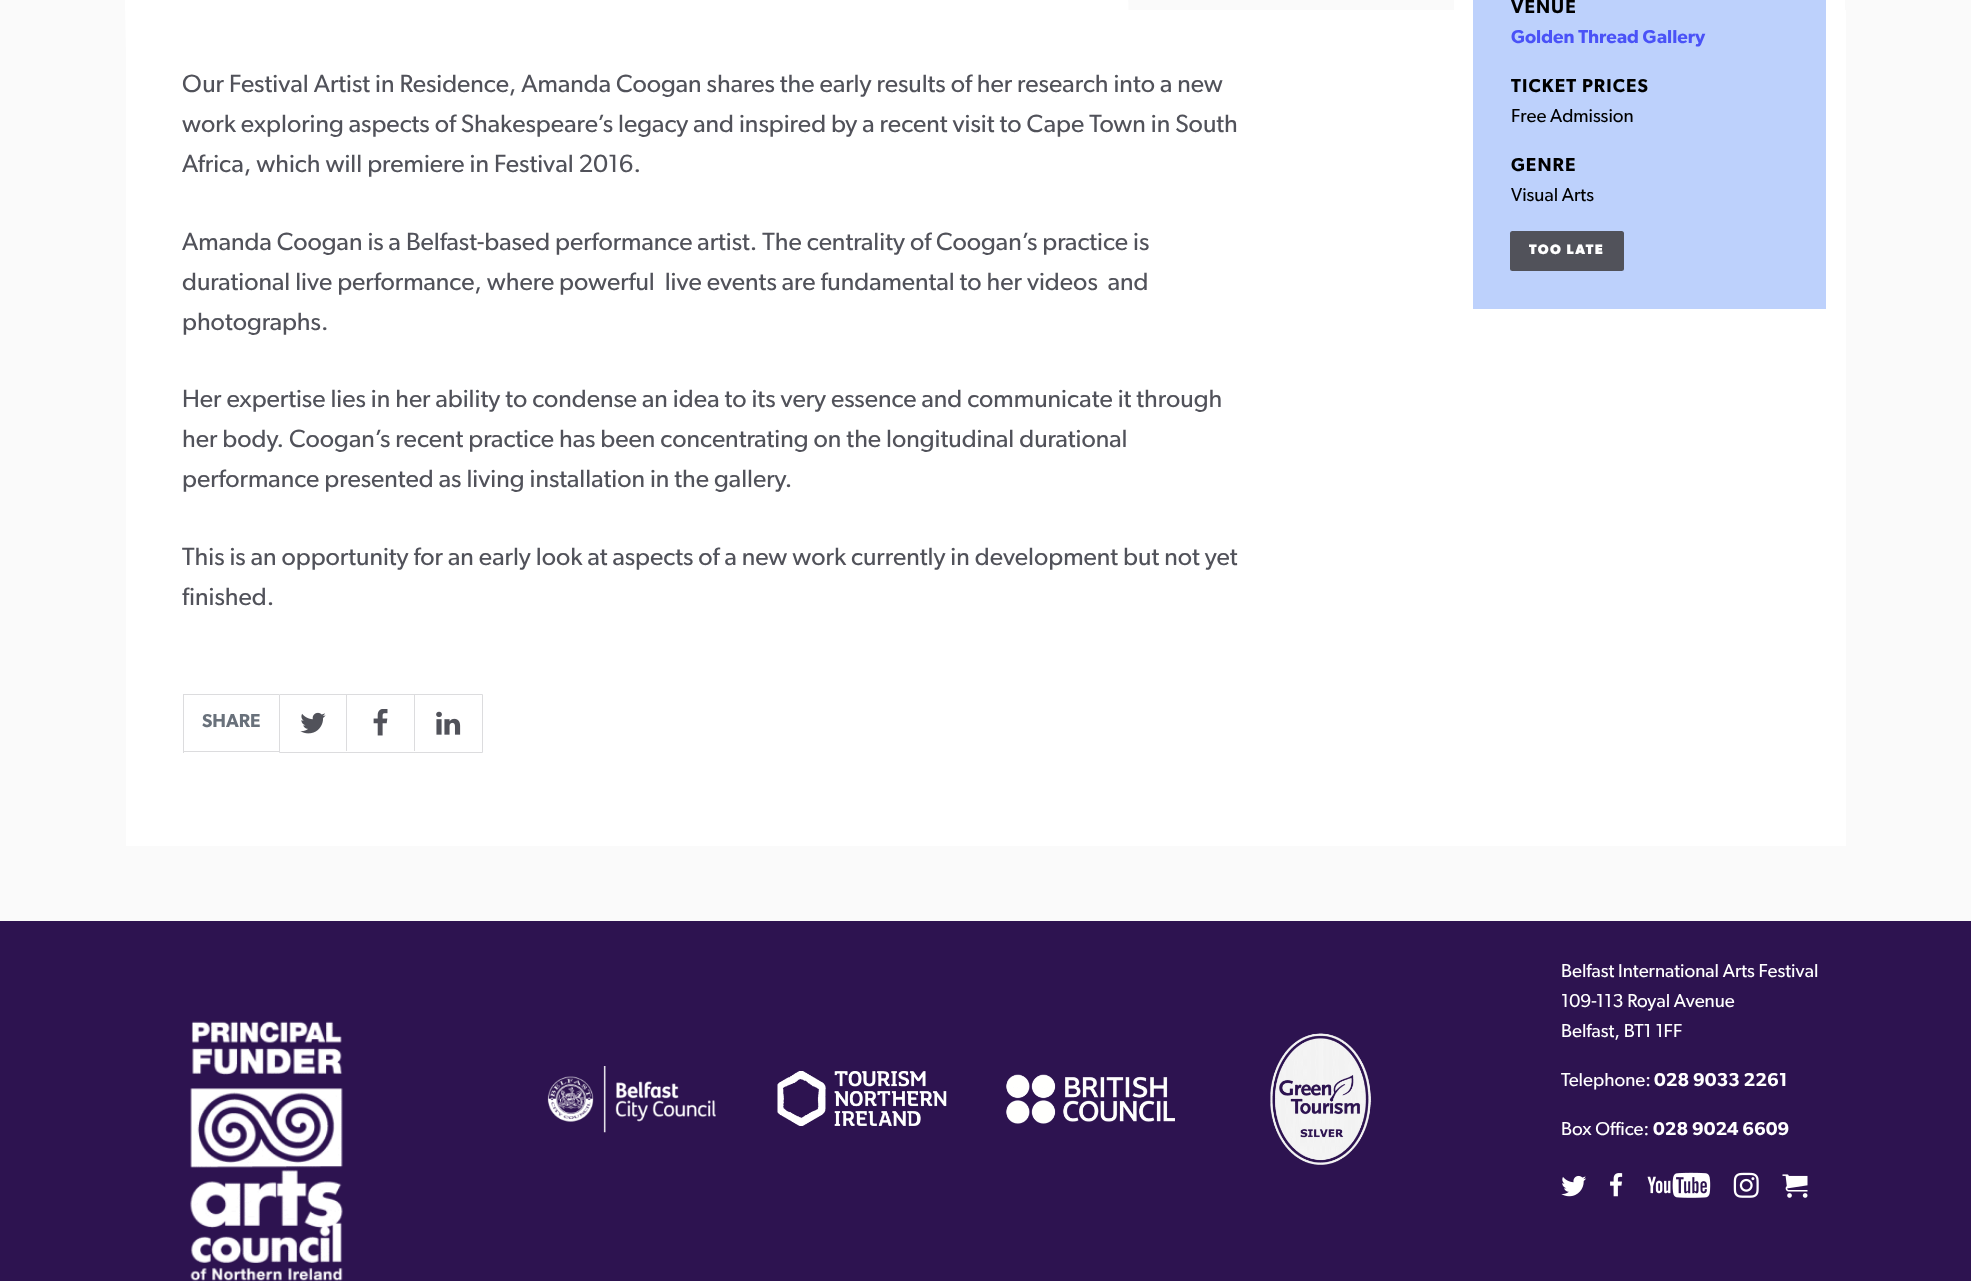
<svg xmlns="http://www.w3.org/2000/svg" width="1971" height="1281">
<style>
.a{font:25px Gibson;fill:#51525a}
.b{font:600 18.75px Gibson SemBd;fill:#69717b}
.c{font:600 18.75px Gibson SemBd;letter-spacing:1.1px;fill:#000}
.d{font:600 18.75px Gibson SemBd;fill:#4a52f7}
.e{font:18.75px Gibson;fill:#000}
.f{font:bold 13.75px Gibson;letter-spacing:1.5px;fill:#fff}
.g{font:18.75px Gibson;fill:#fff}
.h{font:600 18.75px Gibson SemBd;fill:#fff}
</style>
<rect width="100%" height="100%" fill="#fafafa"/>
<path fill="#fff" d="M126 10h1720v836H126z"/>
<path fill="#fff" d="M121-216l1003-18l5 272l-1003 18z"/>
<path fill="#dcdcde" d="M183 694h96v1H183z"/>
<path fill="#dcdcde" d="M183 751h96v1H183z"/>
<path fill="#dcdcde" d="M183 694h1v59H183z"/>
<path fill="none" stroke="#dcdcde" d="M279.5 694.5h203v58H279.5z"/>
<path fill="#dcdcde" d="M346 695h1v56H346z"/>
<image href="1.png" x="300" y="712" width="26" height="22"/>
<path fill="#dcdcde" d="M414 695h1v56H414z"/>
<image href="2.png" x="373" y="709" width="15" height="27"/>
<image href="3.png" x="436" y="711" width="25" height="24"/>
<path fill="#fff" d="M1454 0h391v10H1454z"/>
<path fill="#bdd1fc" d="M1473 0h353v309H1473z"/>
<rect fill="#51525a" x="1510" y="231" width="114" height="40" rx="2.5"/>
<path fill="#2d1350" d="M0 921h1971v360H0z"/>
<image href="4.png" x="190" y="1021" width="153" height="260"/>
<image href="5.png" x="547" y="1066" width="169" height="67"/>
<image href="6.png" x="777" y="1071" width="170" height="55"/>
<image href="7.png" x="1006" y="1074" width="169" height="50"/>
<image href="8.png" x="1270" y="1033" width="102" height="132"/>
<image href="9.png" x="1561" y="1175" width="26" height="22"/>
<image href="10.png" x="1610" y="1173" width="13" height="24"/>
<image href="11.png" x="1647" y="1172" width="64" height="26"/>
<image href="12.png" x="1733" y="1172" width="26" height="26"/>
<image href="13.png" x="1782" y="1174" width="26" height="24"/>
<text class="a" x="182" y="92">Our Festival Artist in Residence, Amanda Coogan shares the early results of her research into a new</text>
<text class="a" x="182" y="132">work exploring aspects of Shakespeare’s legacy and inspired by a recent visit to Cape Town in South</text>
<text class="a" x="182" y="172">Africa, which will premiere in Festival 2016.</text>
<text class="a" x="182" y="250">Amanda Coogan is a Belfast-based performance artist. The centrality of Coogan’s practice is</text>
<text class="a" xml:space="preserve" x="182" y="290">durational live performance, where powerful  live events are fundamental to her videos  and</text>
<text class="a" x="182" y="330">photographs.</text>
<text class="a" x="182" y="407">Her expertise lies in her ability to condense an idea to its very essence and communicate it through</text>
<text class="a" x="182" y="447">her body. Coogan’s recent practice has been concentrating on the longitudinal durational</text>
<text class="a" x="182" y="487">performance presented as living installation in the gallery.</text>
<text class="a" x="182" y="565">This is an opportunity for an early look at aspects of a new work currently in development but not yet</text>
<text class="a" x="182" y="605">finished.</text>
<text class="b" x="202" y="727">SHARE</text>
<text class="c" x="1511" y="13">VENUE</text>
<text class="d" x="1511" y="43">Golden Thread Gallery</text>
<text class="c" x="1511" y="92">TICKET PRICES</text>
<text class="e" x="1511" y="122">Free Admission</text>
<text class="c" x="1511" y="171">GENRE</text>
<text class="e" x="1511" y="201">Visual Arts</text>
<text class="f" x="1529" y="254">TOO LATE</text>
<text class="g" x="1561" y="977">Belfast International Arts Festival</text>
<text class="g" x="1561" y="1007">109-113 Royal Avenue</text>
<text class="g" x="1561" y="1037">Belfast, BT1 1FF</text>
<text class="g" x="1561" y="1086">Telephone:</text>
<text class="h" x="1654" y="1086">028 9033 2261</text>
<text class="g" x="1561" y="1135">Box Office:</text>
<text class="h" x="1653" y="1135">028 9024 6609</text>
</svg>
